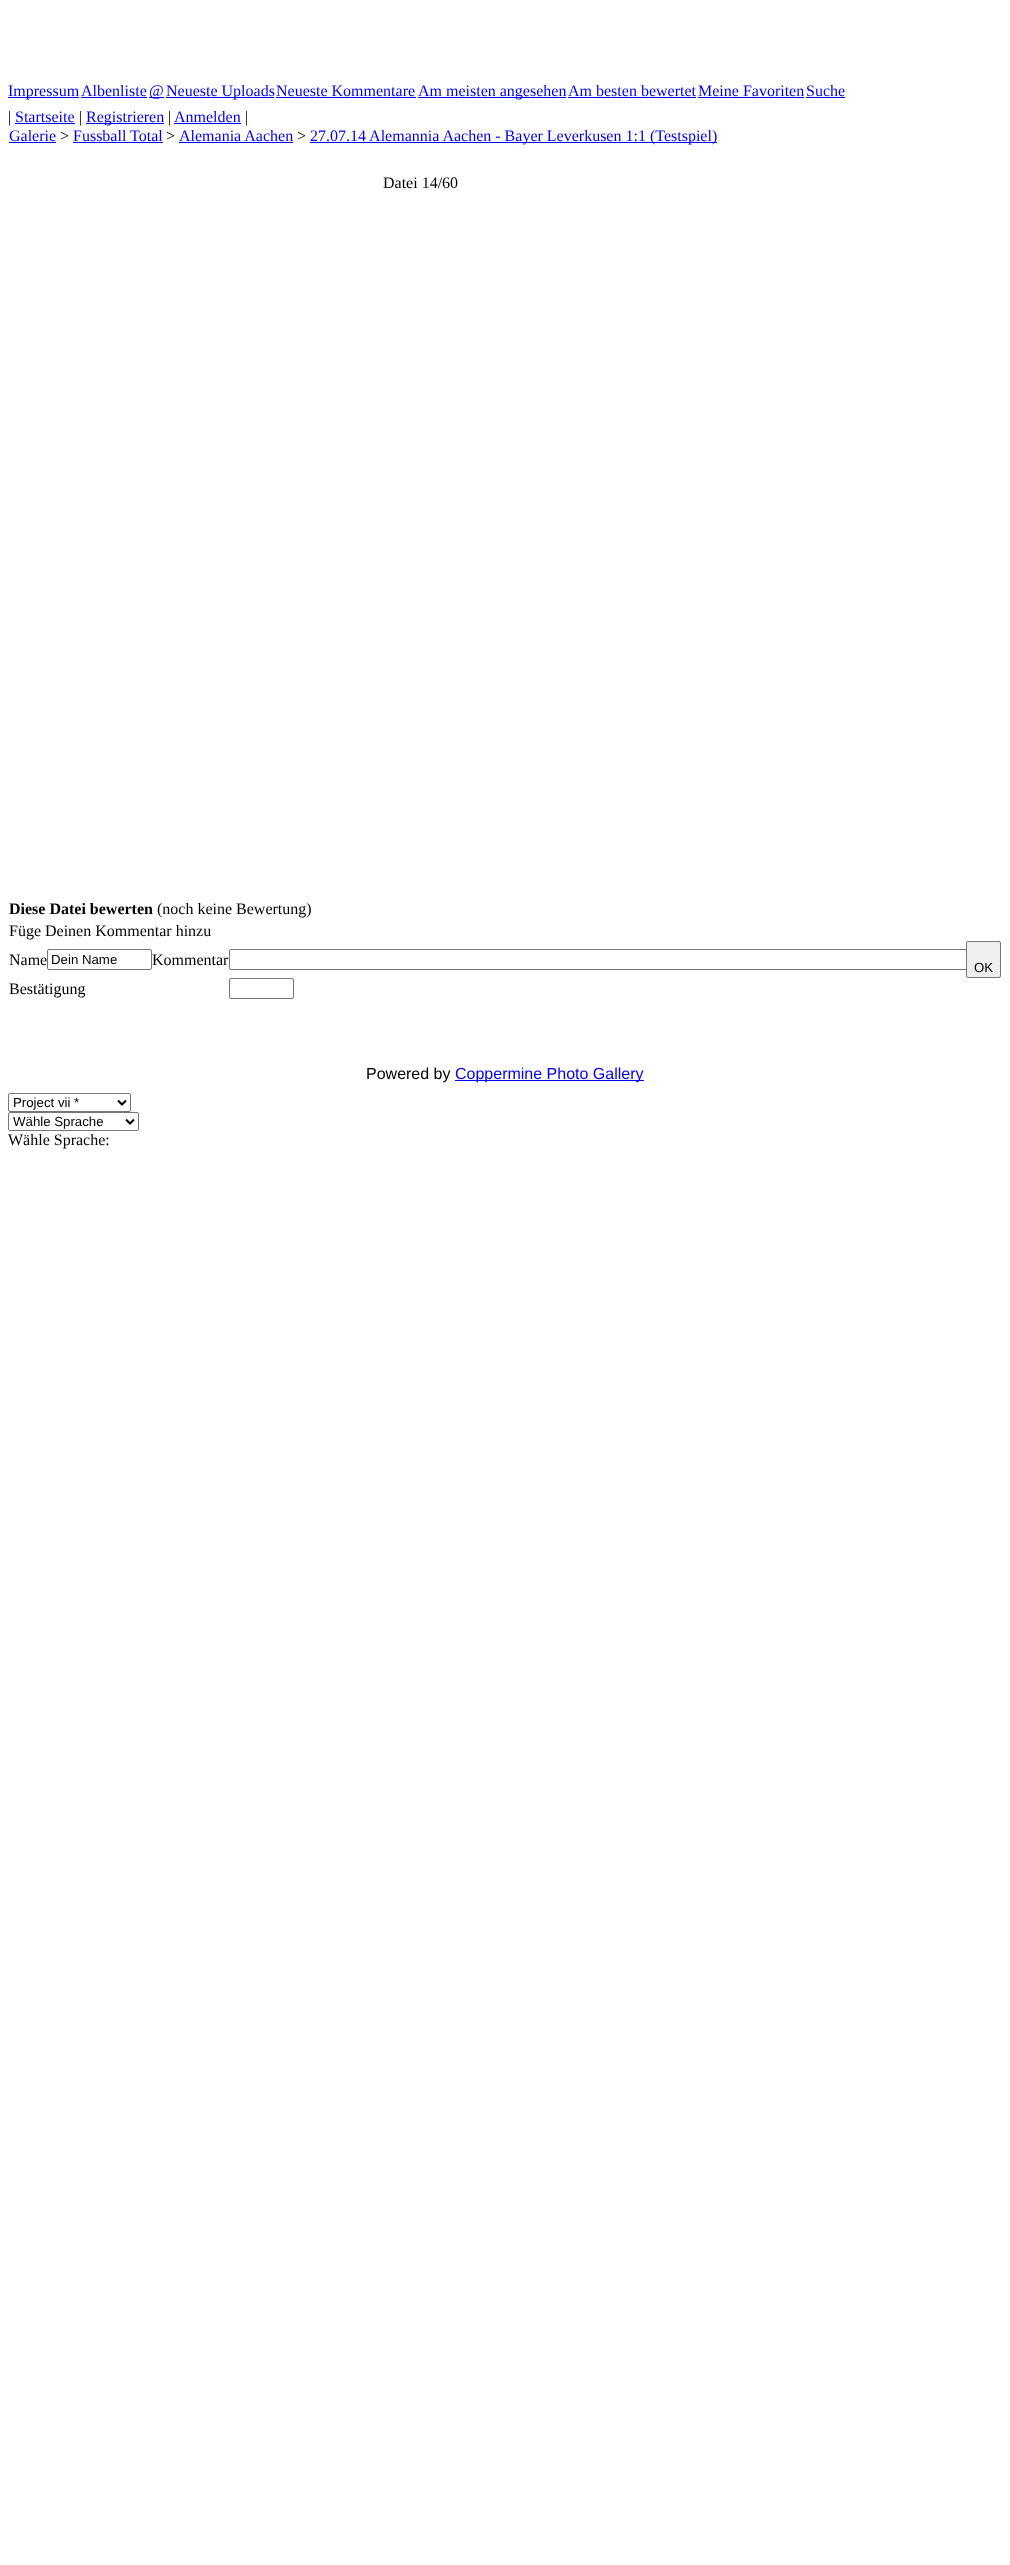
<svg xmlns="http://www.w3.org/2000/svg" width="1010" height="2565">
<style>
.a{font:16px Liberation Serif;fill:#00e}
.b{font:16px Liberation Serif;fill:#000}
.c{font:bold 16px Liberation Serif;fill:#000}
.d{font:13.25px Liberation Sans;fill:#000}
.e{font:16px Liberation Sans;fill:#000}
.f{font:16px Liberation Sans;fill:#00e}
</style>
<rect width="100%" height="100%" fill="#fff"/>
<path fill="#00e" d="M8 97h71v1H8z"/>
<path fill="#00e" d="M81 97h66v1H81z"/>
<path fill="#00e" d="M149 97h15v1H149z"/>
<path fill="#00e" d="M166 97h108v1H166z"/>
<path fill="#00e" d="M276 97h140v1H276z"/>
<path fill="#00e" d="M418 97h148v1H418z"/>
<path fill="#00e" d="M568 97h128v1H568z"/>
<path fill="#00e" d="M698 97h106v1H698z"/>
<path fill="#00e" d="M806 97h39v1H806z"/>
<path fill="#00e" d="M15 123h60v1H15z"/>
<path fill="#00e" d="M86 123h78v1H86z"/>
<path fill="#00e" d="M174 123h67v1H174z"/>
<path fill="#00e" d="M9 142h47v1H9z"/>
<path fill="#00e" d="M73 142h90v1H73z"/>
<path fill="#00e" d="M179 142h114v1H179z"/>
<path fill="#00e" d="M310 142h407v1H310z"/>
<rect fill="none" stroke="#767676" x="47.5" y="949.5" width="104" height="20" rx="1.5"/>
<rect fill="none" stroke="#767676" x="229.5" y="949.5" width="744" height="20" rx="1.5"/>
<rect fill="#efefef" stroke="#767676" x="966.5" y="941.5" width="34" height="36" rx="1.5"/>
<rect fill="none" stroke="#767676" x="229.5" y="978.5" width="64" height="20" rx="1.5"/>
<path fill="#00e" d="M455 1080h189v1H455z"/>
<rect fill="none" stroke="#767676" x="8.5" y="1093.5" width="122" height="18" rx="1.5"/>
<path fill="none" stroke="#000" stroke-width="2" d="M118 1100.5l4 4l4-4"/>
<rect fill="none" stroke="#767676" x="8.5" y="1112.5" width="130" height="18" rx="1.5"/>
<path fill="none" stroke="#000" stroke-width="2" d="M126 1119.5l4 4l4-4"/>
<text class="a" x="8" y="96">Impressum</text>
<text class="a" x="81" y="96">Albenliste</text>
<text class="a" x="149" y="96">@</text>
<text class="a" x="166" y="96">Neueste Uploads</text>
<text class="a" x="276" y="96">Neueste Kommentare</text>
<text class="a" x="418" y="96">Am meisten angesehen</text>
<text class="a" x="568" y="96">Am besten bewertet</text>
<text class="a" x="698" y="96">Meine Favoriten</text>
<text class="a" x="806" y="96">Suche</text>
<text class="b" x="8" y="122">|</text>
<text class="a" x="15" y="122">Startseite</text>
<text class="b" x="79" y="122">|</text>
<text class="a" x="86" y="122">Registrieren</text>
<text class="b" x="168" y="122">|</text>
<text class="a" x="174" y="122">Anmelden</text>
<text class="b" x="245" y="122">|</text>
<text class="a" x="9" y="141">Galerie</text>
<text class="b" x="60" y="141">&gt;</text>
<text class="a" x="73" y="141">Fussball Total</text>
<text class="b" x="166" y="141">&gt;</text>
<text class="a" x="179" y="141">Alemania Aachen</text>
<text class="b" x="297" y="141">&gt;</text>
<text class="a" x="310" y="141">27.07.14 Alemannia Aachen - Bayer Leverkusen 1:1 (Testspiel)</text>
<text class="b" x="383" y="188">Datei 14/60</text>
<text class="c" x="9" y="914">Diese Datei bewerten</text>
<text class="b" x="157" y="914">(noch keine Bewertung)</text>
<text class="b" x="9" y="936">Füge Deinen Kommentar hinzu</text>
<text class="b" x="9" y="965">Name</text>
<text class="d" x="51" y="964">Dein Name</text>
<text class="b" x="152" y="965">Kommentar</text>
<text class="d" x="974" y="972">OK</text>
<text class="b" x="9" y="994">Bestätigung</text>
<text class="e" x="366" y="1079">Powered by</text>
<text class="f" x="455" y="1079">Coppermine Photo Gallery</text>
<text class="d" x="13" y="1107">Project vii *</text>
<text class="d" x="13" y="1126">Wähle Sprache</text>
<text class="b" x="8" y="1145">Wähle Sprache:</text>
</svg>
